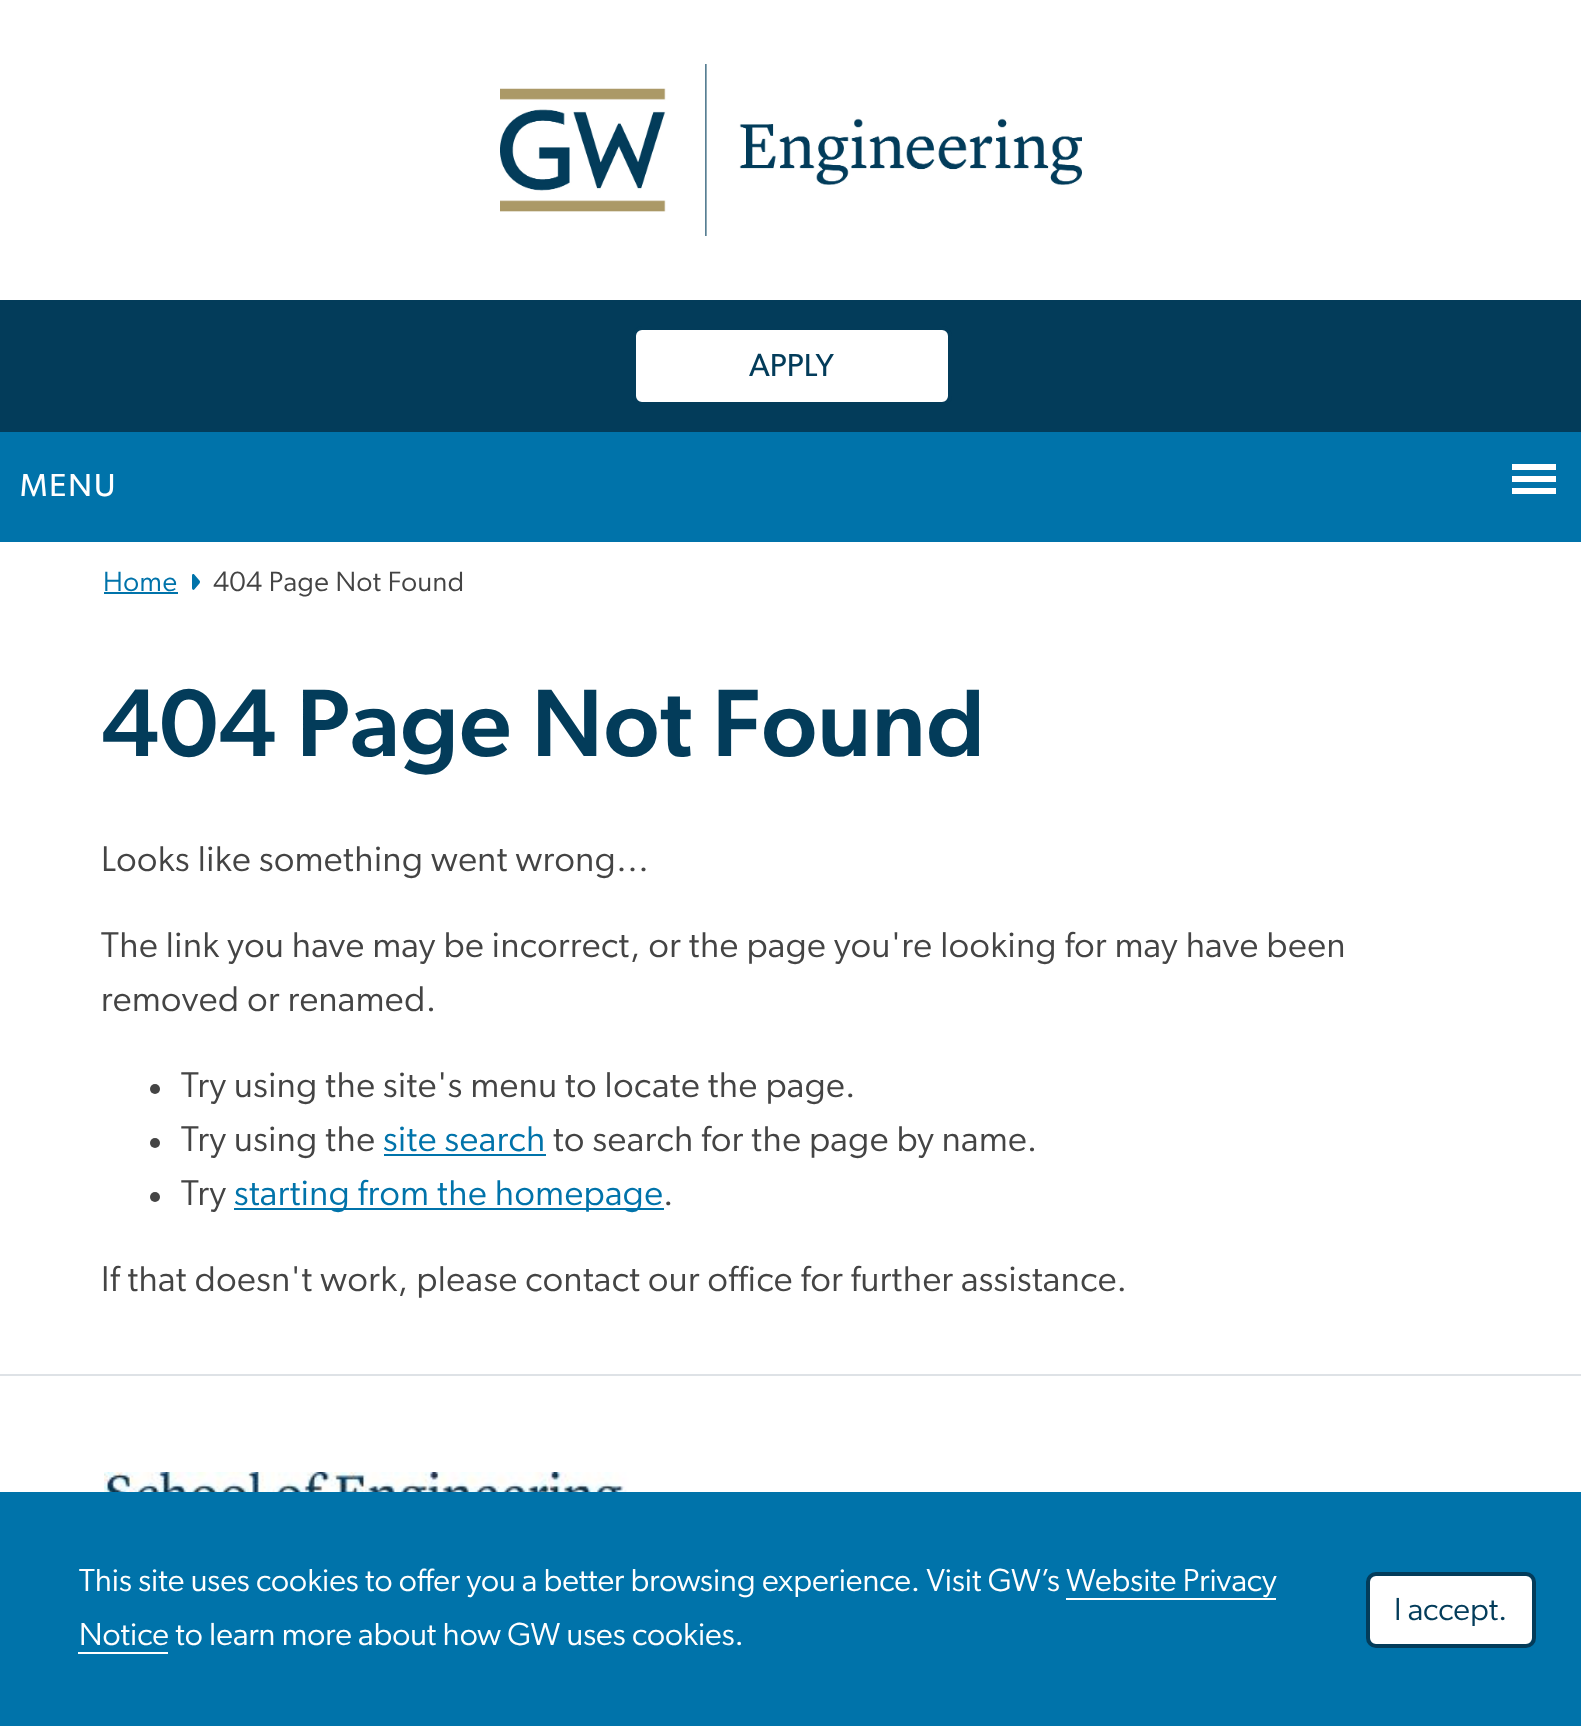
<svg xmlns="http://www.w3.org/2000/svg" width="1581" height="1726">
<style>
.a{font:32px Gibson;fill:#033c5a}
.b{font:32px Gibson;letter-spacing:2px;fill:#fff}
.c{font:28px 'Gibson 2';letter-spacing:0.5px;fill:#0073aa}
.d{font:28px 'Gibson 2';letter-spacing:0.5px;fill:#444}
.e{font:500 96px Gibson;letter-spacing:0.5px;fill:#033c5a}
.f{font:36px 'Gibson 2';letter-spacing:0.5px;fill:#444}
.g{font:36px 'Gibson 2';letter-spacing:0.5px;fill:#0073aa}
.h{font:32px 'Gibson 2';fill:#fff}
.i{font:32px 'Gibson 2';fill:#033c5a}
</style>
<rect width="100%" height="100%" fill="#fff"/>
<image href="1.png" x="500" y="64" width="582" height="172"/>
<path fill="#033c5a" d="M0 300h1581v132H0z"/>
<rect fill="#fff" stroke="#033c5a" stroke-width="4" x="634" y="328" width="316" height="76" rx="8"/>
<path fill="#0073aa" d="M0 432h1581v110H0z"/>
<path fill="#fff" d="M1512 464h44v6H1512z"/>
<path fill="#fff" d="M1512 476h44v6H1512z"/>
<path fill="#fff" d="M1512 488h44v6H1512z"/>
<path fill="#0073aa" d="M104 592h74v2H104z"/>
<image href="2.png" x="192" y="574" width="8" height="16"/>
<circle fill="#444" cx="155" cy="1089" r="5"/>
<circle fill="#444" cx="155" cy="1143" r="5"/>
<path fill="#0073aa" d="M384 1154h162v2H384z"/>
<circle fill="#444" cx="155" cy="1197" r="5"/>
<path fill="#0073aa" d="M234 1208h430v2H234z"/>
<path fill="#dee2e6" d="M0 1374h1581v2H0z"/>
<image href="3.png" x="104" y="1472" width="544" height="20"/>
<path fill="#0073aa" d="M0 1492h1581v234H0z"/>
<path fill="#fff" d="M1066 1598h210v2H1066z"/>
<path fill="#fff" d="M78 1652h90v2H78z"/>
<rect fill="#fff" stroke="#033c5a" stroke-width="4" x="1368" y="1574" width="166" height="72" rx="8"/>
<text class="a" x="749" y="376">APPLY</text>
<text class="b" x="20" y="496">MENU</text>
<text class="c" x="103" y="591">Home</text>
<text class="d" x="213" y="591">404 Page Not Found</text>
<text class="e" x="101" y="756">404 Page Not Found</text>
<text class="f" x="101" y="871">Looks like something went wrong...</text>
<text class="f" x="101" y="957">The link you have may be incorrect, or the page you're looking for may have been</text>
<text class="f" x="101" y="1011">removed or renamed.</text>
<text class="f" x="181" y="1097">Try using the site's menu to locate the page.</text>
<text class="f" x="181" y="1151">Try using the</text>
<text class="g" x="383" y="1151">site search</text>
<text class="f" x="553" y="1151">to search for the page by name.</text>
<text class="f" x="181" y="1205">Try</text>
<text class="g" x="234" y="1205">starting from the homepage</text>
<text class="f" x="663" y="1205">.</text>
<text class="f" x="101" y="1291">If that doesn't work, please contact our office for further assistance.</text>
<text class="h" x="79" y="1591">This site uses cookies to offer you a better browsing experience. Visit GW’s Website Privacy</text>
<text class="h" x="79" y="1645">Notice to learn more about how GW uses cookies.</text>
<text class="i" x="1394" y="1620">I accept.</text>
</svg>
